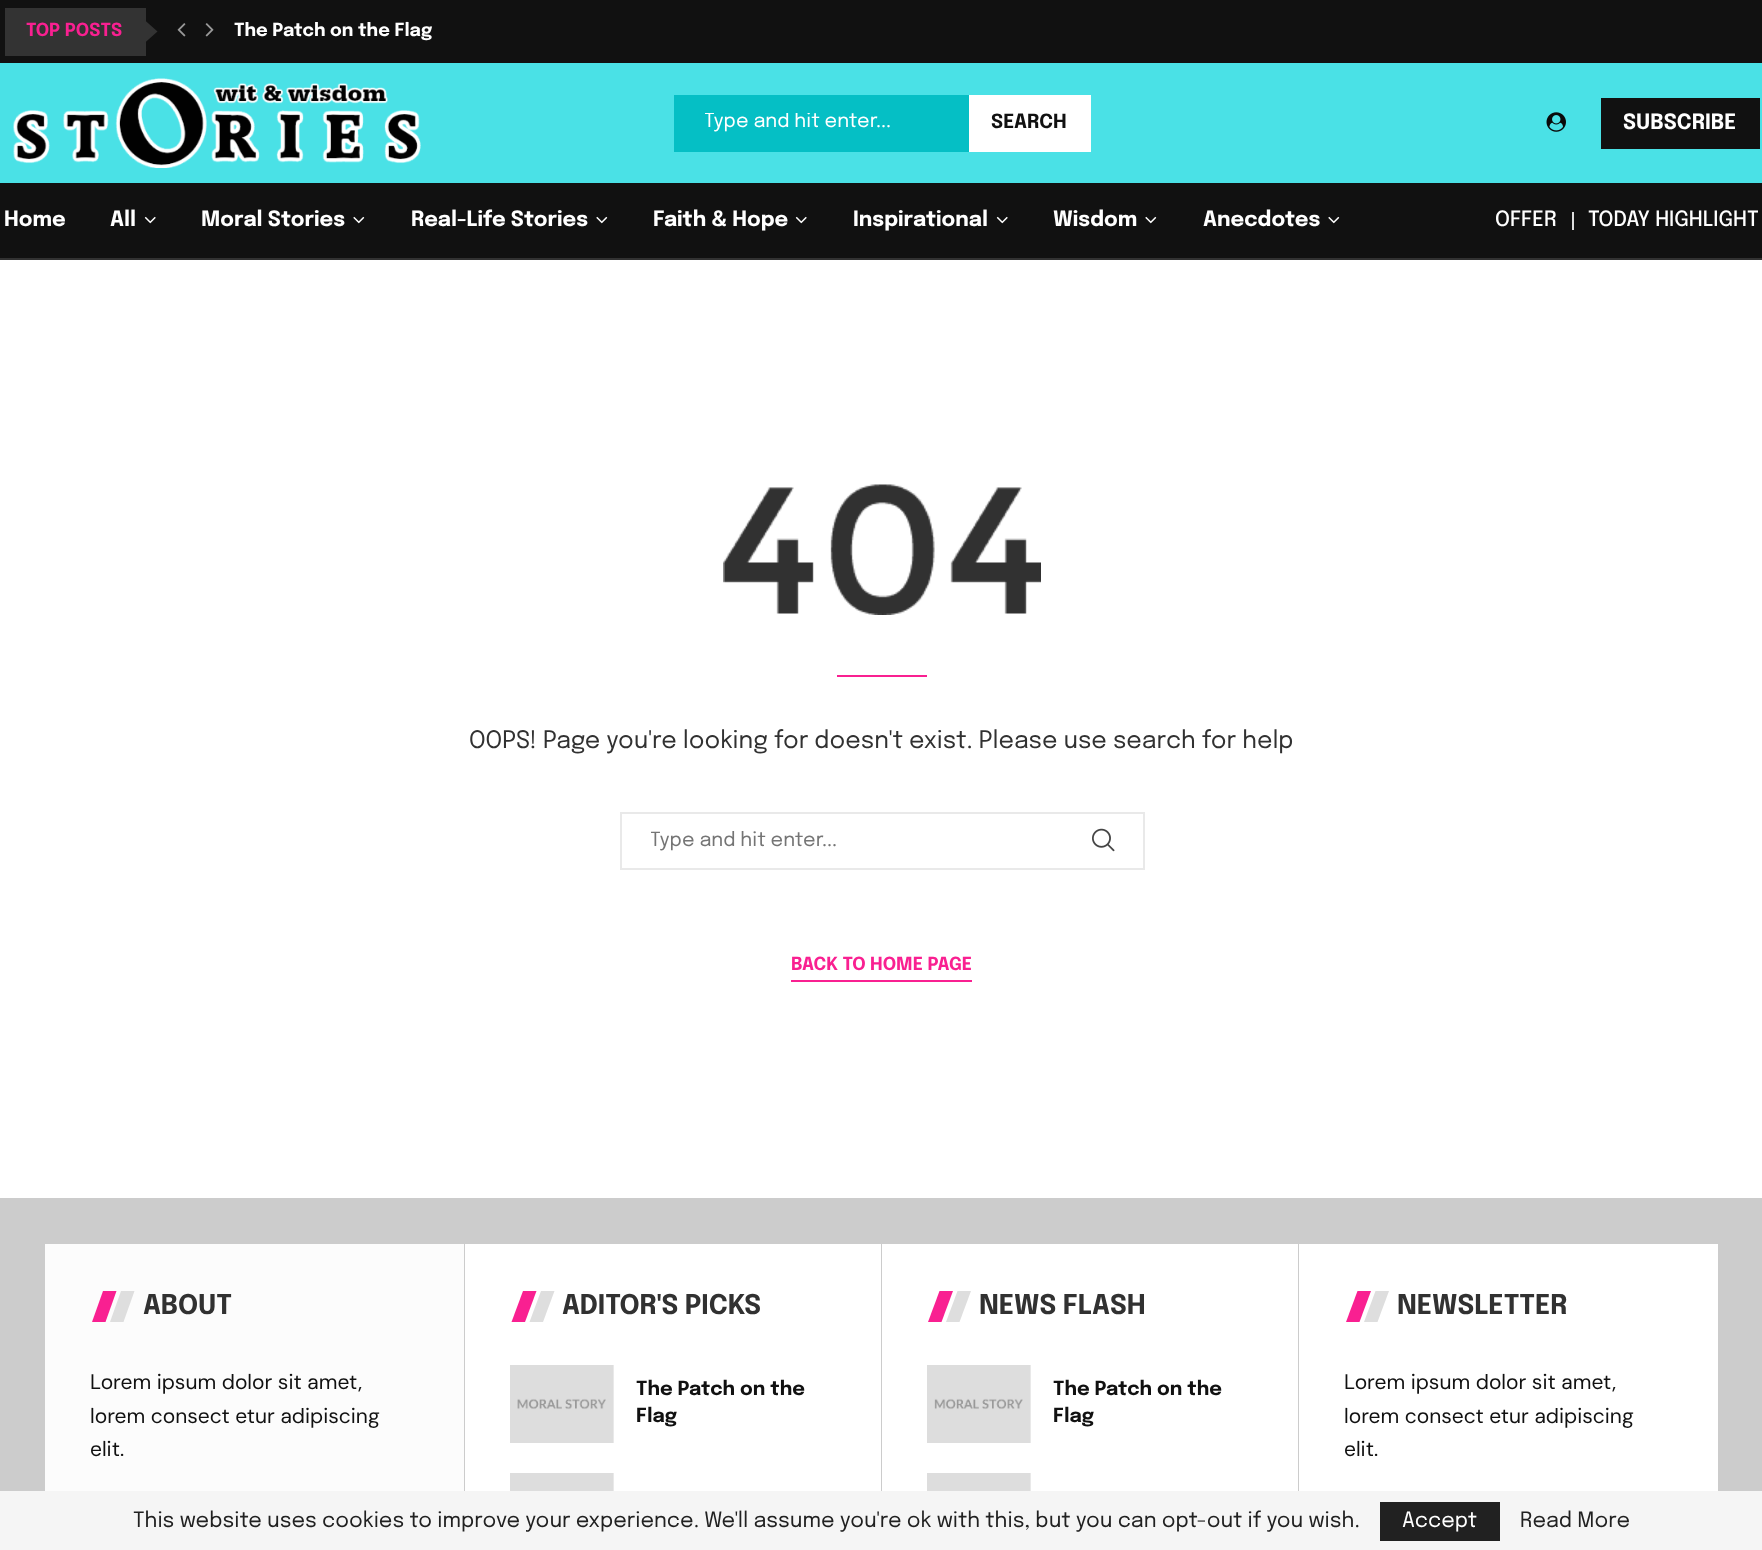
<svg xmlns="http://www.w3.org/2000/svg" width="1762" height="1550">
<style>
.a{font:bold 18px Epilogue;fill:#f92091}
.b{font:bold 18px Epilogue;fill:#fff}
.c{font:19.5px Epilogue;fill:#fff}
.d{font:bold 19.5px Epilogue;fill:#111}
.e{font:bold 21px Epilogue;fill:#fff}
.f{font:500 21px Epilogue;fill:#fff}
.g{font:24px Epilogue;fill:#313131}
.h{font:19.5px Epilogue;fill:#757575}
.i{font:bold 27px Epilogue;letter-spacing:-0.1px;fill:#313131}
.j{font:21px DM Sans;fill:#111}
.k{font:21px Epilogue;fill:#212121}
.l{font:21px Epilogue;fill:#fff}
</style>
<defs>
<clipPath id="clip1"><path d="M705 113h236v19H705z"/></clipPath>
<clipPath id="clip2"><path d="M651 831h432v20H651z"/></clipPath>
</defs>
<rect width="100%" height="100%" fill="#fff"/>
<path fill="#111" d="M0 0h1762v63H0z"/>
<path fill="#333" d="M5 8h141v48H5z"/>
<path fill="#333" d="M144 43.5v-24l13.5 12z"/>
<image href="1.png" x="177" y="23" width="9" height="14"/>
<image href="2.png" x="205" y="23" width="9" height="14"/>
<path fill="#4ae1e6" d="M0 63h1762v120H0z"/>
<image href="3.png" x="13" y="78" width="408" height="90"/>
<path fill="#05bfc5" d="M674 95h295v57H674z"/>
<path fill="#fff" d="M969 95h122v57H969z"/>
<image href="4.png" x="1546" y="112" width="20" height="20"/>
<path fill="#111" d="M1601 98h159v51H1601z"/>
<path fill="#111" d="M0 183h1762v75H0z"/>
<path fill="#323232" d="M0 258h1762v2H0z"/>
<image href="5.png" x="144" y="216" width="12" height="8"/>
<image href="6.png" x="353" y="216" width="12" height="8"/>
<image href="6.png" x="596" y="216" width="12" height="8"/>
<image href="5.png" x="795" y="216" width="12" height="8"/>
<image href="5.png" x="996" y="216" width="12" height="8"/>
<image href="6.png" x="1145" y="216" width="12" height="8"/>
<image href="6.png" x="1328" y="216" width="12" height="8"/>
<path fill="#dedede" d="M1572 212h2v18H1572z"/>
<image href="7.png" x="723" y="484" width="318" height="131"/>
<path fill="#f92091" d="M837 675h90v2H837z"/>
<path fill="none" stroke="#e9e9e9" stroke-width="2" d="M621 813h523v56H621z"/>
<image href="8.png" x="1092" y="828" width="23" height="24"/>
<path fill="#f92091" d="M791 980h181v2H791z"/>
<path fill="#ccc" d="M0 1198h1762v293H0z"/>
<path fill="#fcfcfc" d="M45 1244h419v247H45z"/>
<path fill="#f92091" d="M103 1291h13.5l-11 31h-13.5z"/>
<path fill="#dedede" d="M121 1291h13.5l-11 31h-13.5z"/>
<path fill="#fff" d="M465 1244h416v247H465z"/>
<path fill="#f92091" d="M523 1291h13.5l-11.5 31h-13.5z"/>
<path fill="#dedede" d="M541 1291h13.5l-11.5 31h-13.5z"/>
<path fill="#f5f5f5" d="M613 1365h1v78H613z"/>
<image href="9.png" x="510" y="1365" width="104" height="78"/>
<path fill="#f5f5f5" d="M613 1473h1v18H613z"/>
<image href="10.png" x="510" y="1473" width="104" height="18"/>
<path fill="#fff" d="M882 1244h416v247H882z"/>
<path fill="#f92091" d="M939.5 1291h13.5l-11.5 31h-13.5z"/>
<path fill="#dedede" d="M957.5 1291h13.5l-11.5 31h-13.5z"/>
<path fill="#f5f5f5" d="M1030 1365h1v78H1030z"/>
<image href="11.png" x="927" y="1365" width="104" height="78"/>
<path fill="#f5f5f5" d="M1030 1473h1v18H1030z"/>
<image href="10.png" x="927" y="1473" width="104" height="18"/>
<path fill="#fff" d="M1299 1244h419v247H1299z"/>
<path fill="#f92091" d="M1357.5 1291h13.5l-11.5 31h-13.5z"/>
<path fill="#dedede" d="M1375.5 1291h13.5l-11.5 31h-13.5z"/>
<path fill="#f5f5f5" d="M0 1491h1762v59H0z"/>
<path fill="#212121" d="M1380 1502h120v39H1380z"/>
<text class="a" x="26" y="36">TOP POSTS</text>
<text class="b" x="234" y="36">The Patch on the Flag</text>
<g clip-path="url(#clip1)">
<text class="c" x="704" y="127">Type and hit enter...</text>
</g>
<text class="d" x="991" y="128">SEARCH</text>
<text class="e" x="1623" y="129">SUBSCRIBE</text>
<text class="e" x="4" y="226">Home</text>
<text class="e" x="110" y="226">All</text>
<text class="e" x="201" y="226">Moral Stories</text>
<text class="e" x="411" y="226">Real-Life Stories</text>
<text class="e" x="653" y="226">Faith &amp; Hope</text>
<text class="e" x="853" y="226">Inspirational</text>
<text class="e" x="1053" y="226">Wisdom</text>
<text class="e" x="1203" y="226">Anecdotes</text>
<text class="f" x="1495" y="226">OFFER</text>
<text class="f" x="1588" y="226">TODAY HIGHLIGHT</text>
<text class="g" x="469" y="748">OOPS! Page you're looking for doesn't exist. Please use search for help</text>
<g clip-path="url(#clip2)">
<text class="h" x="650" y="846">Type and hit enter...</text>
</g>
<text class="a" x="791" y="970">BACK TO HOME PAGE</text>
<text class="i" x="143" y="1314">ABOUT</text>
<text class="j" x="90" y="1389">Lorem ipsum dolor sit amet,</text>
<text class="j" x="90" y="1423">lorem consect etur adipiscing</text>
<text class="j" x="90" y="1456">elit.</text>
<text class="i" x="562" y="1314">ADITOR'S PICKS</text>
<text class="d" x="636" y="1395">The Patch on the</text>
<text class="d" x="636" y="1422">Flag</text>
<text class="i" x="979" y="1314">NEWS FLASH</text>
<text class="d" x="1053" y="1395">The Patch on the</text>
<text class="d" x="1053" y="1422">Flag</text>
<text class="i" x="1397" y="1314">NEWSLETTER</text>
<text class="j" x="1344" y="1389">Lorem ipsum dolor sit amet,</text>
<text class="j" x="1344" y="1423">lorem consect etur adipiscing</text>
<text class="j" x="1344" y="1456">elit.</text>
<text class="k" x="133" y="1527">This website uses cookies to improve your experience. We'll assume you're ok with this, but you can opt-out if you wish.</text>
<text class="l" x="1402" y="1527">Accept</text>
<text class="k" x="1520" y="1527">Read More</text>
</svg>
